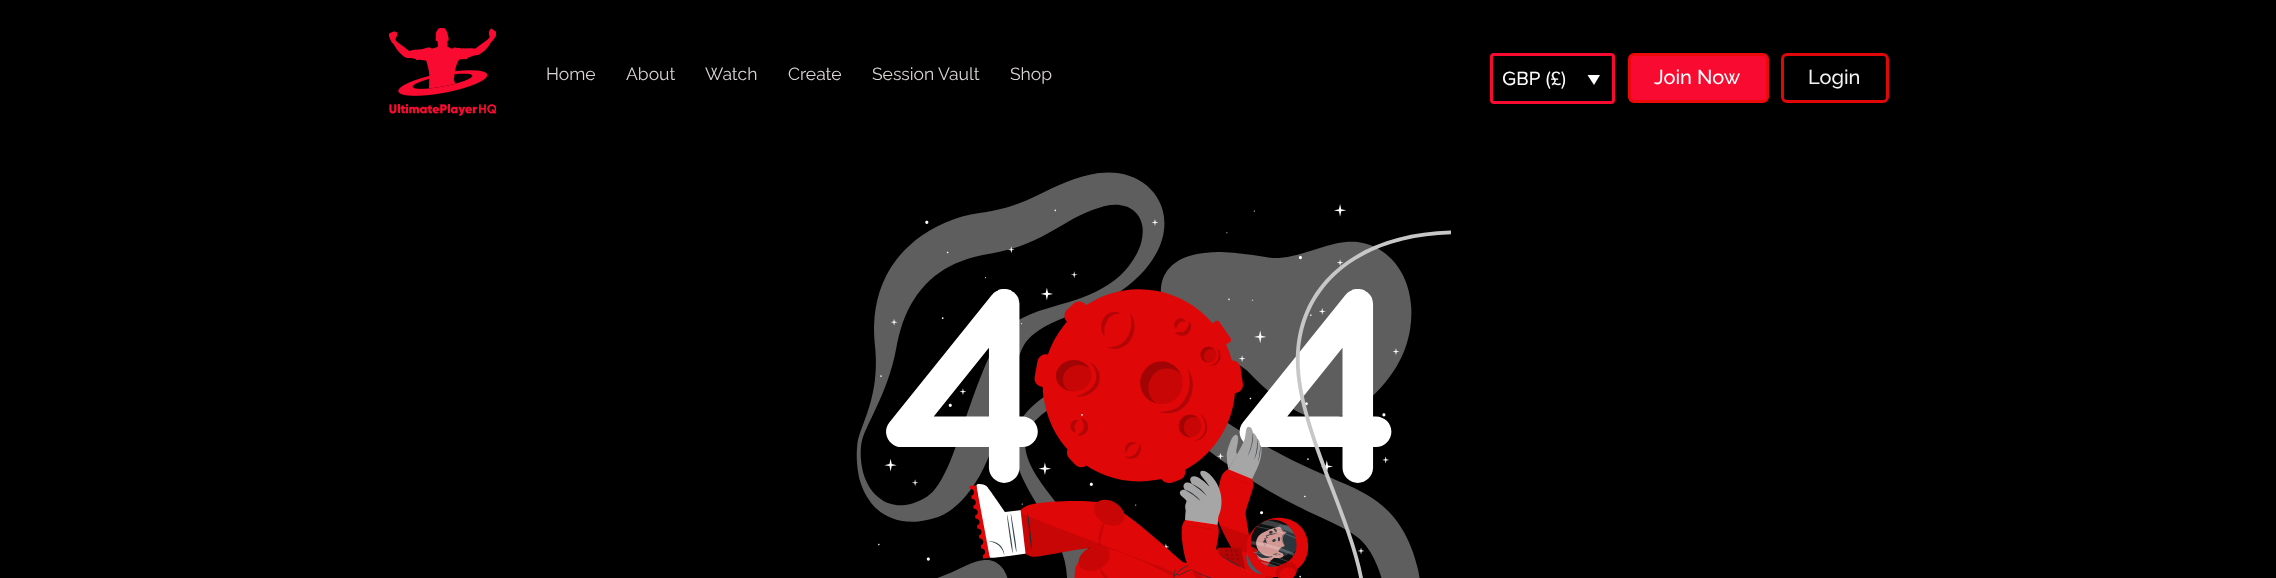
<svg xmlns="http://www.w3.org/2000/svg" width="2276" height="578">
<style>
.a{font:17.5px Raleway;fill:#dbd5d5}
.b{font:20px Proxima Nova;fill:#fff}
.c{font:500 20px Raleway;fill:#fff}
.d{font:500 20px Raleway;fill:#f3f3f3}
</style>
<rect width="100%" height="100%" fill="#000"/>
<image href="1.png" x="389" y="28" width="107" height="88"/>
<rect fill="none" stroke="#f90a30" stroke-width="3" x="1491.5" y="54.5" width="122" height="48" rx="2.5"/>
<path fill="#fff" d="M1587.5 75h12.5l-6 10z"/>
<rect fill="#f90a30" stroke="#ec0909" stroke-width="3" x="1629.5" y="54.5" width="138" height="47" rx="4.5"/>
<rect fill="none" stroke="#df0707" stroke-width="3" x="1782.5" y="54.5" width="105" height="47" rx="4.5"/>
<image href="2.png" x="856" y="172" width="595" height="406"/>
<text class="a" x="546" y="80">Home</text>
<text class="a" x="626" y="80">About</text>
<text class="a" x="705" y="80">Watch</text>
<text class="a" x="788" y="80">Create</text>
<text class="a" x="872" y="80">Session Vault</text>
<text class="a" x="1010" y="80">Shop</text>
<text class="b" x="1502" y="85">GBP (£)</text>
<text class="c" x="1654" y="84">Join Now</text>
<text class="d" x="1808" y="84">Login</text>
</svg>
